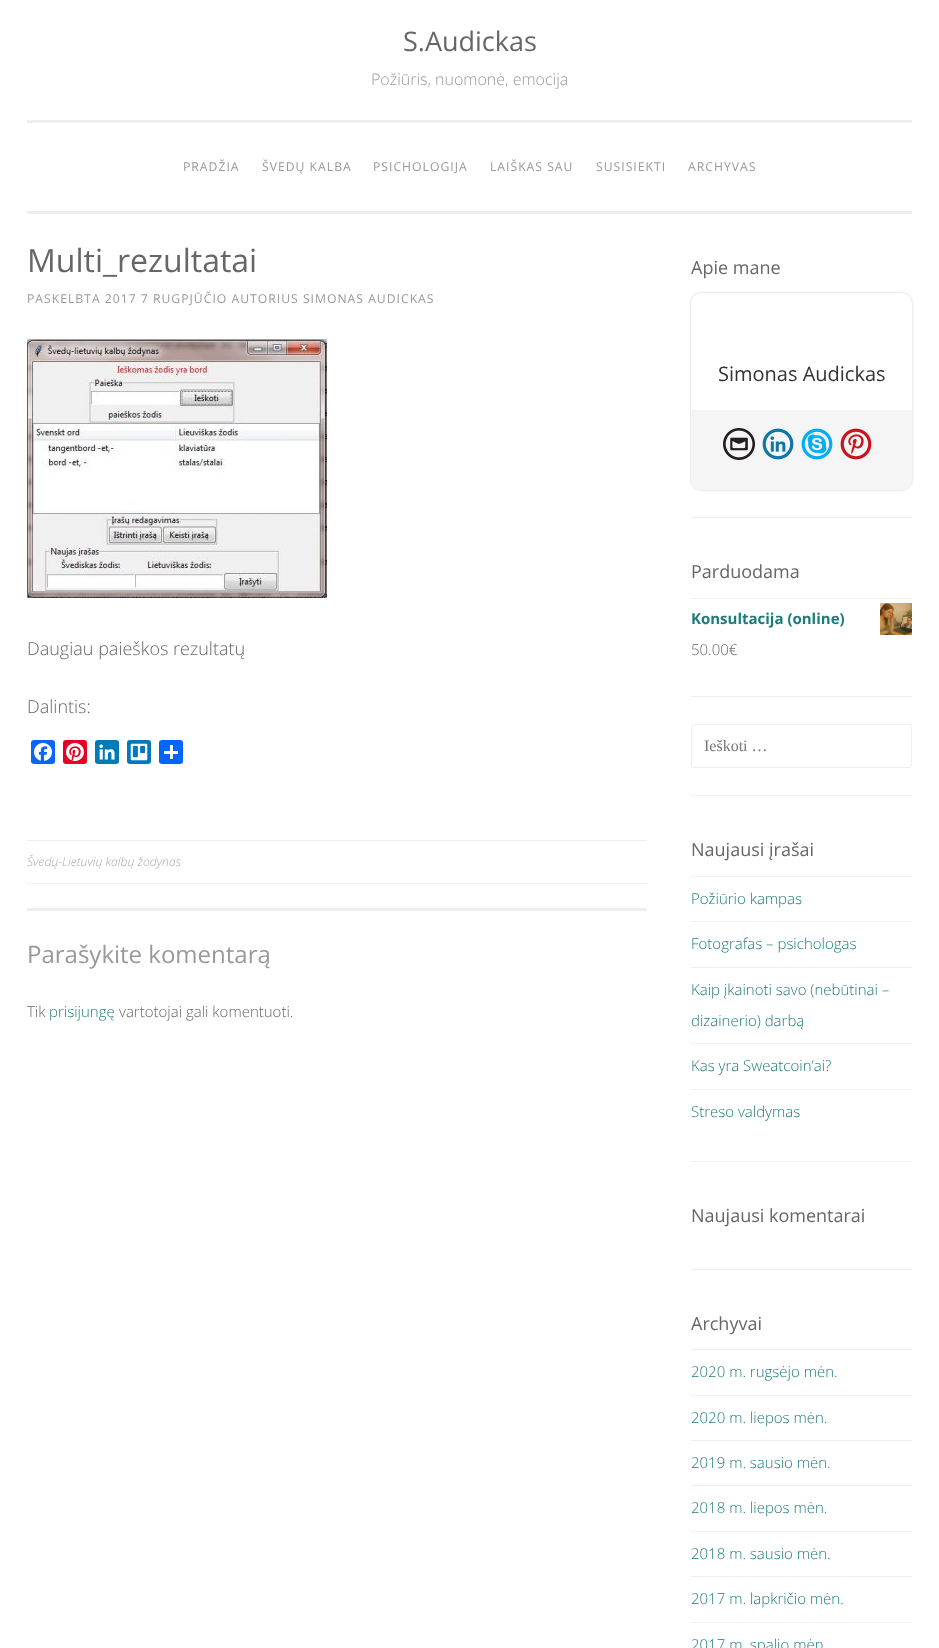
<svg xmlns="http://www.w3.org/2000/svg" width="939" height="1648">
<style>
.a{font:27px Open Sans;fill:#666}
.b{font:300 16px Open Sans;fill:#999}
.c{font:12.2px Open Sans;letter-spacing:1px;fill:#999}
.d{font:32px Open Sans;fill:#666}
.e{font:300 18px Open Sans;fill:#666}
.f{font:italic 300 12.2px Open Sans;fill:#aaa}
.g{font:24px Open Sans;fill:#999}
.h{font:300 15px Open Sans;fill:#666}
.i{font:300 15px Open Sans;fill:#1c7c7c}
.j{font:18px Open Sans;fill:#666}
.k{font:20px Open Sans;fill:#333}
.l{font:bold 15px Open Sans;fill:#1c7c7c}
.m{font:16px Liberation Serif;fill:#757575}
</style>
<rect width="100%" height="100%" fill="#fff"/>
<path fill="#eee" d="M27 211h885v3H27z"/>
<path fill="#eee" d="M27 120h885v3H27z"/>
<image href="1.png" x="27" y="339" width="300" height="259"/>
<rect fill="#0866ff" x="31" y="740" width="24" height="24" rx="3"/>
<image href="2.png" x="34" y="743" width="18" height="18"/>
<rect fill="#e60023" x="63" y="740" width="24" height="24" rx="3"/>
<image href="3.png" x="66" y="743" width="18" height="18"/>
<rect fill="#007bb5" x="95" y="740" width="24" height="24" rx="3"/>
<image href="4.png" x="99" y="744" width="16" height="16"/>
<rect fill="#0079bf" x="127" y="740" width="24" height="24" rx="3"/>
<image href="5.png" x="130" y="743" width="18" height="18"/>
<rect fill="#0166ff" x="159" y="740" width="24" height="24" rx="3"/>
<path fill="#fff" d="M170 745h3v14H170z"/>
<path fill="#fff" d="M164 751h14v3H164z"/>
<path fill="#eee" d="M27 840h620v1H27z"/>
<path fill="#eee" d="M27 883h620v1H27z"/>
<path fill="#eee" d="M27 908h620v3H27z"/>
<path fill="#eee" d="M691 517h221v1H691z"/>
<rect fill="#00000038" filter="blur(1px)" x="691" y="293" width="221" height="197" rx="10"/>
<rect fill="#fff" x="691" y="293" width="221" height="197" rx="10"/>
<path fill="#f5f5f5" d="M691 410h221v70c0 5.5-4.5 10-10 10h-201c-5.5 0-10-4.5-10-10z"/>
<image href="6.png" x="723" y="428" width="32" height="32"/>
<image href="7.png" x="762" y="428" width="32" height="32"/>
<image href="8.png" x="801" y="428" width="32" height="32"/>
<image href="9.png" x="840" y="428" width="32" height="32"/>
<path fill="#eee" d="M691 696h221v1H691z"/>
<path fill="#eee" d="M691 598h221v1H691z"/>
<image href="10.png" x="880" y="603" width="32" height="32"/>
<path fill="#eee" d="M691 795h221v1H691z"/>
<rect fill="none" stroke="#eee" x="691.5" y="724.5" width="220" height="43" rx="2.5"/>
<path fill="#eee" d="M691 1161h221v1H691z"/>
<path fill="#eee" d="M691 876h221v1H691z"/>
<path fill="#eee" d="M691 921h221v1H691z"/>
<path fill="#eee" d="M691 967h221v1H691z"/>
<path fill="#eee" d="M691 1043h221v1H691z"/>
<path fill="#eee" d="M691 1089h221v1H691z"/>
<path fill="#eee" d="M691 1269h221v1H691z"/>
<path fill="#eee" d="M691 1349h221v1H691z"/>
<path fill="#eee" d="M691 1395h221v1H691z"/>
<path fill="#eee" d="M691 1440h221v1H691z"/>
<path fill="#eee" d="M691 1485h221v1H691z"/>
<path fill="#eee" d="M691 1531h221v1H691z"/>
<path fill="#eee" d="M691 1576h221v1H691z"/>
<path fill="#eee" d="M691 1622h221v1H691z"/>
<text class="a" x="403" y="51">S.Audickas</text>
<text class="b" x="371" y="85">Požiūris, nuomonė, emocija</text>
<text class="c" x="183" y="171">PRADŽIA</text>
<text class="c" x="262" y="171">ŠVEDŲ KALBA</text>
<text class="c" x="373" y="171">PSICHOLOGIJA</text>
<text class="c" x="490" y="171">LAIŠKAS SAU</text>
<text class="c" x="596" y="171">SUSISIEKTI</text>
<text class="c" x="688" y="171">ARCHYVAS</text>
<text class="d" x="27" y="272">Multi_rezultatai</text>
<text class="c" x="27" y="303">PASKELBTA 2017 7 RUGPJŪČIO AUTORIUS SIMONAS AUDICKAS</text>
<text class="e" x="27" y="655">Daugiau paieškos rezultatų</text>
<text class="e" x="27" y="713">Dalintis:</text>
<text class="f" x="27" y="866">Švedų-Lietuvių kalbų žodynas</text>
<text class="g" x="27" y="963">Parašykite komentarą</text>
<text class="h" x="27" y="1017">Tik</text>
<text class="i" x="49" y="1017">prisijungę</text>
<text class="h" x="119" y="1017">vartotojai gali komentuoti.</text>
<text class="j" x="691" y="274">Apie mane</text>
<text class="k" x="718" y="381">Simonas Audickas</text>
<text class="j" x="691" y="578">Parduodama</text>
<text class="l" x="691" y="624">Konsultacija (online)</text>
<text class="h" x="691" y="655">50.00€</text>
<text class="m" x="704" y="751">Ieškoti …</text>
<text class="j" x="691" y="856">Naujausi įrašai</text>
<text class="i" x="691" y="904">Požiūrio kampas</text>
<text class="i" x="691" y="949">Fotografas – psichologas</text>
<text class="i" x="691" y="995">Kaip įkainoti savo (nebūtinai –</text>
<text class="i" x="691" y="1026">dizainerio) darbą</text>
<text class="i" x="691" y="1071">Kas yra Sweatcoin’ai?</text>
<text class="i" x="691" y="1117">Streso valdymas</text>
<text class="j" x="691" y="1222">Naujausi komentarai</text>
<text class="j" x="691" y="1330">Archyvai</text>
<text class="i" x="691" y="1377">2020 m. rugsėjo mėn.</text>
<text class="i" x="691" y="1423">2020 m. liepos mėn.</text>
<text class="i" x="691" y="1468">2019 m. sausio mėn.</text>
<text class="i" x="691" y="1513">2018 m. liepos mėn.</text>
<text class="i" x="691" y="1559">2018 m. sausio mėn.</text>
<text class="i" x="691" y="1604">2017 m. lapkričio mėn.</text>
<text class="i" x="691" y="1650">2017 m. spalio mėn</text>
</svg>
